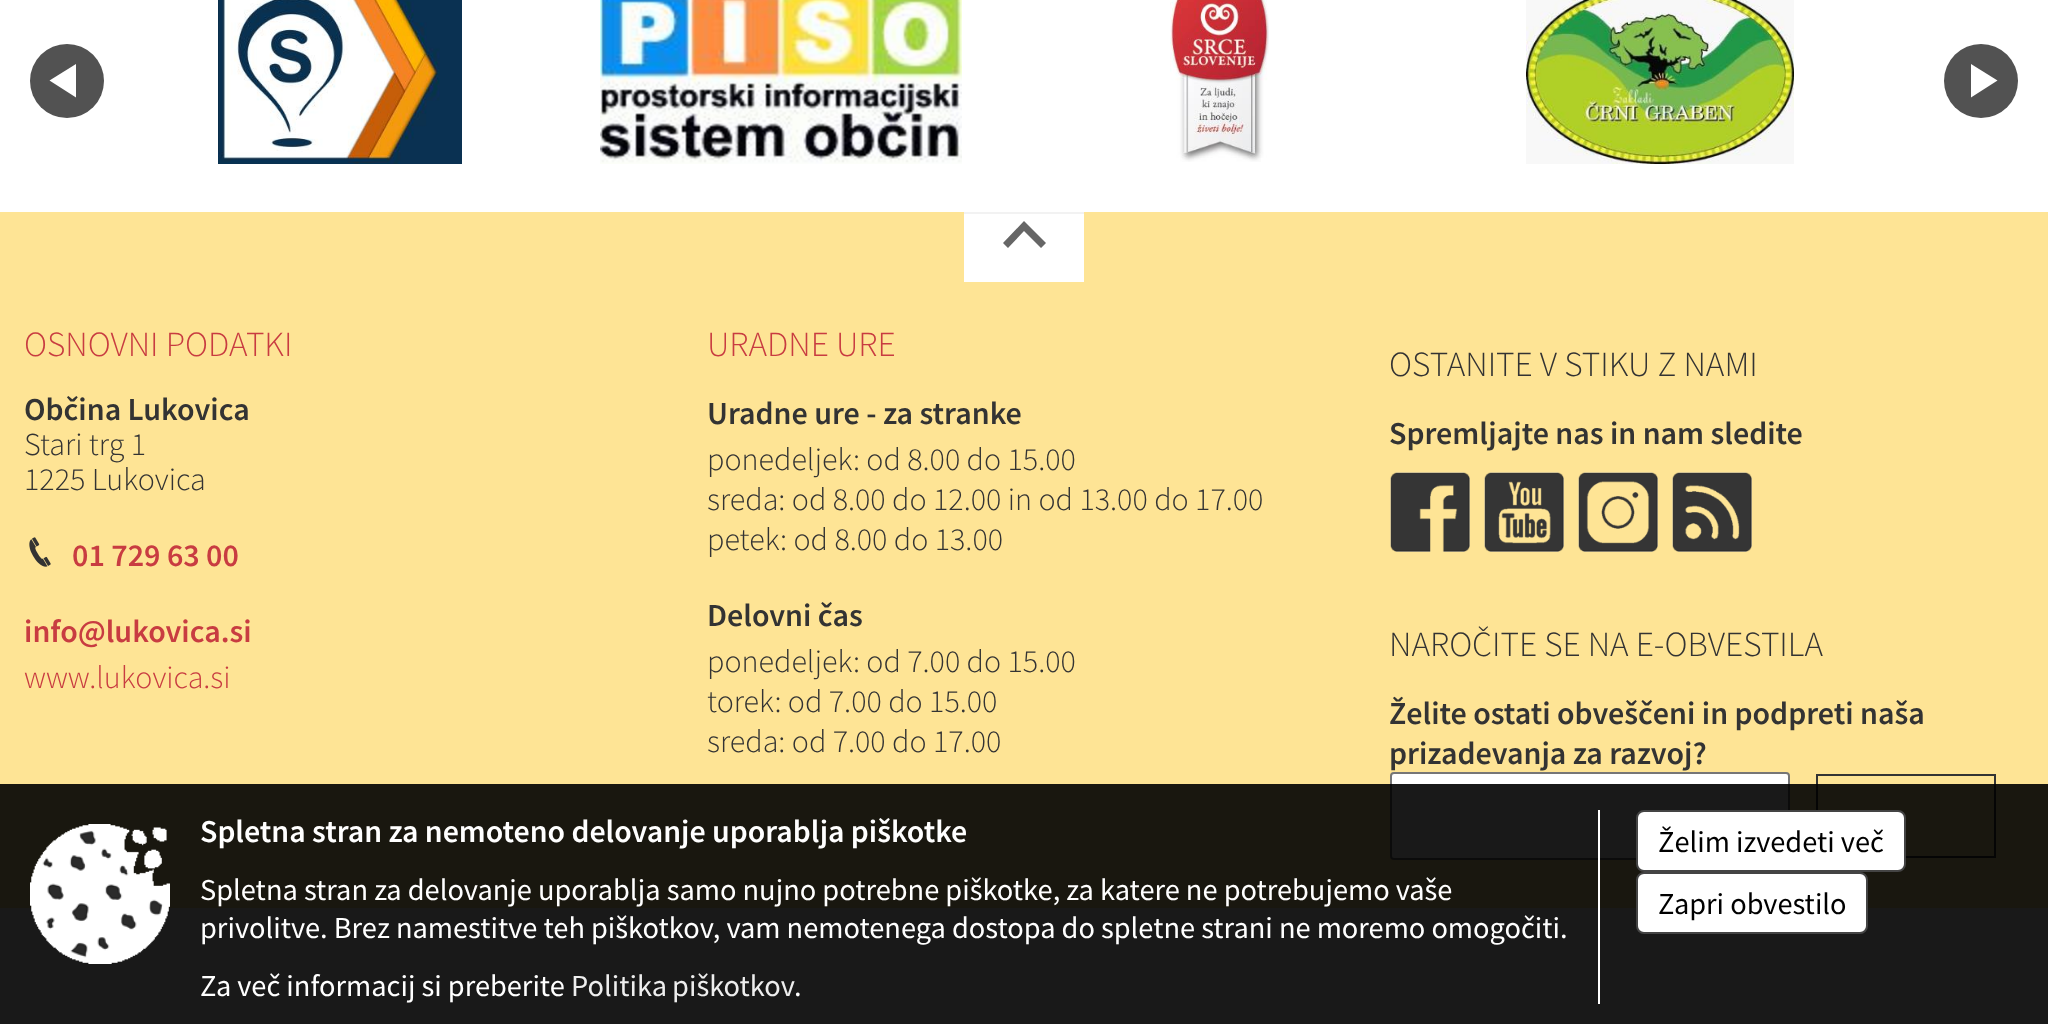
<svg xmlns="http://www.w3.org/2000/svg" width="2048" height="1024">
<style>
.a{font:300 35.25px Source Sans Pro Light;fill:#c83c41}
.b{font:600 32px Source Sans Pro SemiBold;fill:#333}
.c{font:300 32px Source Sans Pro Light;fill:#333}
.d{font:600 32px Source Sans Pro SemiBold;fill:#c83c41}
.e{font:300 32px Source Sans Pro Light;fill:#c83c41}
.f{font:300 35.25px Source Sans Pro Light;fill:#333}
.g{font:600 31.9px Source Sans Pro SemiBold;fill:#fff}
.h{font:30.4px Source Sans Pro;fill:#fff}
.i{font:30.4px Source Sans Pro;fill:#eee}
.j{font:30.4px Source Sans Pro;fill:#000}
</style>
<rect width="100%" height="100%" fill="#fff"/>
<circle fill="#525252" cx="67" cy="81" r="37"/>
<path fill="#fff" d="M76 97.5l-26.5-17l26.5-16.5z"/>
<image href="1.png" x="218" y="0" width="244" height="164"/>
<image href="2.png" x="600" y="0" width="362" height="164"/>
<image href="3.png" x="1170" y="0" width="99" height="162"/>
<image href="4.png" x="1526" y="0" width="268" height="164"/>
<circle fill="#525252" cx="1981" cy="81" r="37"/>
<path fill="#fff" d="M1971 64l26.5 16.5l-26.5 17z"/>
<path fill="#fee495" d="M0 212h2048v696H0z"/>
<path fill="#fff" d="M964 214h120v68H964z"/>
<path fill="#f2f2f2" d="M964 212h120v2H964z"/>
<path fill="#666" d="M1008 248l-5-5l21-22l22 22l-5 5l-17-17z"/>
<image href="5.png" x="29" y="537" width="22" height="30"/>
<image href="6.png" x="1390" y="472" width="80" height="80"/>
<image href="7.png" x="1484" y="472" width="80" height="80"/>
<image href="8.png" x="1578" y="472" width="80" height="80"/>
<image href="9.png" x="1672" y="472" width="80" height="80"/>
<rect fill="#fff" stroke="#767676" stroke-width="2" x="1391" y="773" width="398" height="86" rx="3"/>
<path fill="none" stroke="#333" stroke-width="2" d="M1817 775h178v82H1817z"/>
<path fill="#000000e6" d="M0 784h2048v240H0z"/>
<image href="10.png" x="30" y="824" width="140" height="140"/>
<path fill="#fff" d="M1598 810h2v194H1598z"/>
<rect fill="#fff" stroke="#444" stroke-width="2" x="1637" y="811" width="268" height="60" rx="7"/>
<rect fill="#fff" stroke="#444" stroke-width="2" x="1637" y="873" width="230" height="60" rx="7"/>
<text class="a" x="24" y="356">OSNOVNI PODATKI</text>
<text class="b" x="24" y="420">Občina Lukovica</text>
<text class="c" x="24" y="455">Stari trg 1</text>
<text class="c" x="24" y="490">1225 Lukovica</text>
<text class="d" x="72" y="566">01 729 63 00</text>
<text class="d" x="24" y="642">info@lukovica.si</text>
<text class="e" x="24" y="688">www.lukovica.si</text>
<text class="a" x="707" y="356">URADNE URE</text>
<text class="b" x="707" y="424">Uradne ure - za stranke</text>
<text class="c" x="707" y="470">ponedeljek: od 8.00 do 15.00</text>
<text class="c" x="707" y="510">sreda: od 8.00 do 12.00 in od 13.00 do 17.00</text>
<text class="c" x="707" y="550">petek: od 8.00 do 13.00</text>
<text class="b" x="707" y="626">Delovni čas</text>
<text class="c" x="707" y="672">ponedeljek: od 7.00 do 15.00</text>
<text class="c" x="707" y="712">torek: od 7.00 do 15.00</text>
<text class="c" x="707" y="752">sreda: od 7.00 do 17.00</text>
<text class="f" x="1389" y="376">OSTANITE V STIKU Z NAMI</text>
<text class="b" x="1389" y="444">Spremljajte nas in nam sledite</text>
<text class="f" x="1389" y="656">NAROČITE SE NA E-OBVESTILA</text>
<text class="b" x="1389" y="724">Želite ostati obveščeni in podpreti naša</text>
<text class="b" x="1389" y="764">prizadevanja za razvoj?</text>
<text class="g" x="200" y="842">Spletna stran za nemoteno delovanje uporablja piškotke</text>
<text class="h" x="200" y="900">Spletna stran za delovanje uporablja samo nujno potrebne piškotke, za katere ne potrebujemo vaše</text>
<text class="h" x="200" y="938">privolitve. Brez namestitve teh piškotkov, vam nemotenega dostopa do spletne strani ne moremo omogočiti.</text>
<text class="h" x="200" y="996">Za več informacij si preberite</text>
<text class="i" x="571" y="996" word-spacing="-1">Politika piškotkov</text>
<text class="h" x="794" y="996">.</text>
<text class="j" x="1658" y="852">Želim izvedeti več</text>
<text class="j" x="1658" y="914">Zapri obvestilo</text>
</svg>
